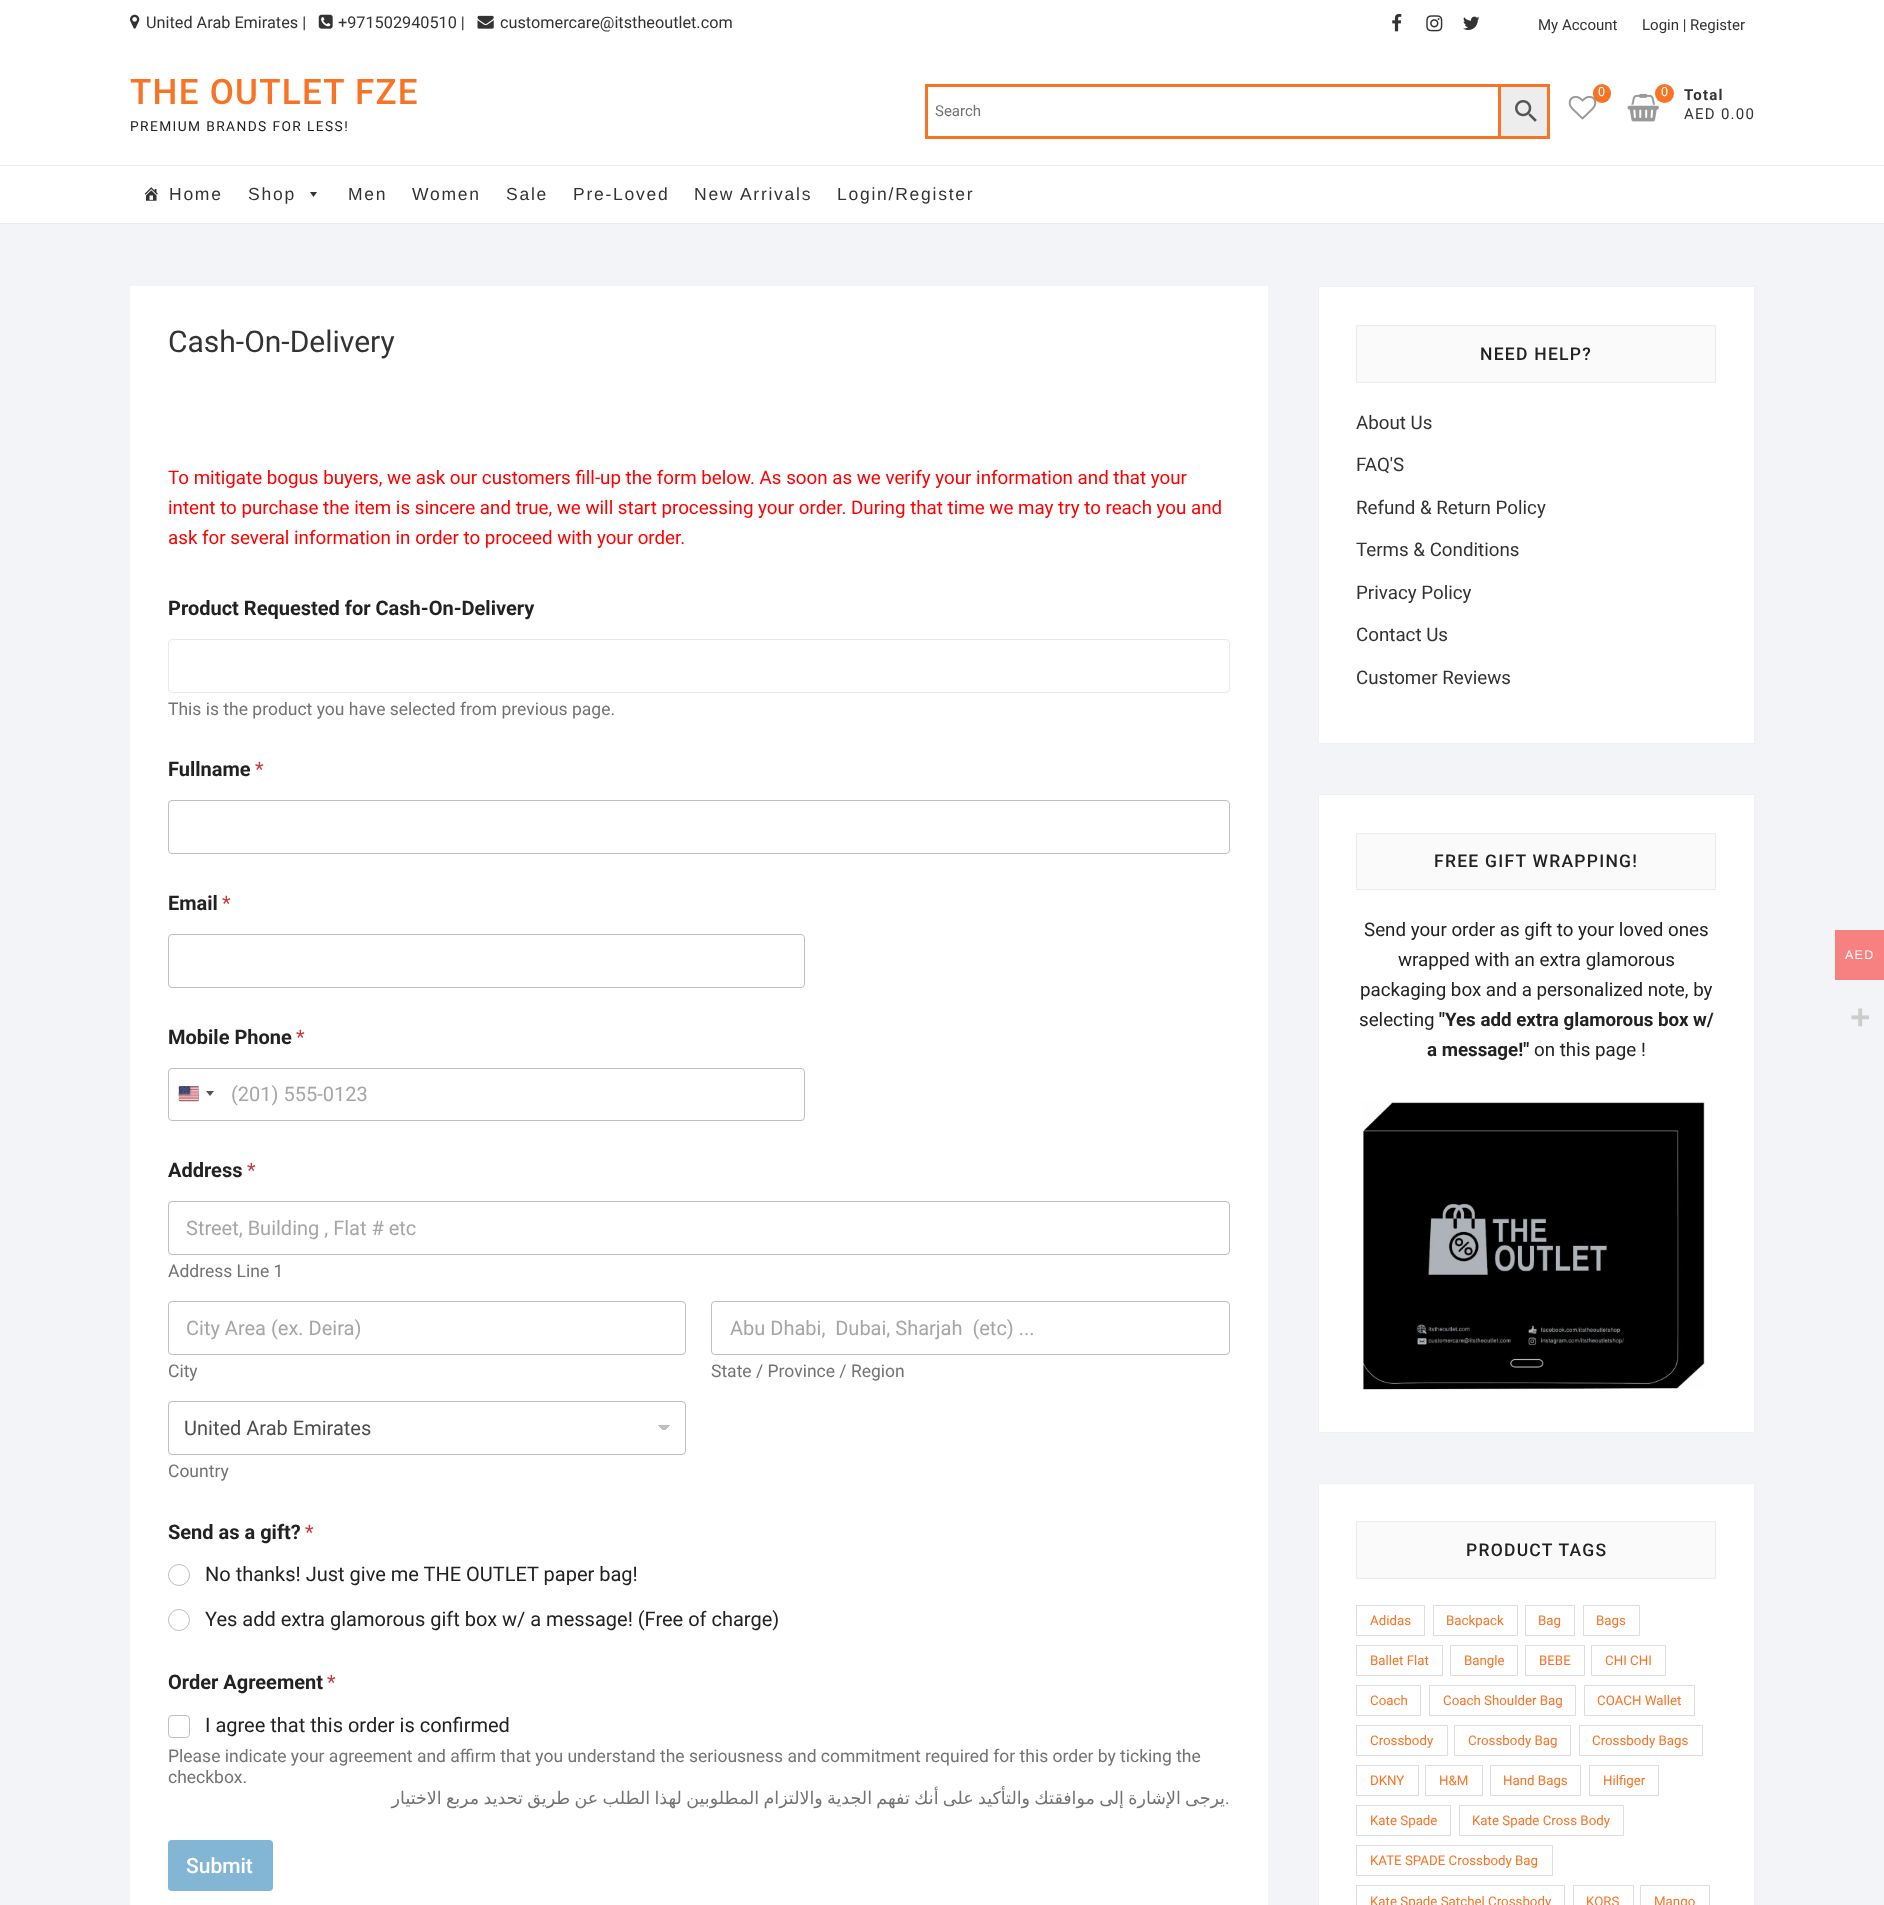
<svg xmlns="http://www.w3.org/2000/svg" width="1884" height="1905">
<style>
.a{font:16.25px Roboto;fill:#333}
.b{font:15px Roboto;fill:#333}
.c{font:500 35px Roboto;letter-spacing:1.25px;fill:#f77426}
.d{font:13.75px Roboto;letter-spacing:1.4px;fill:#222}
.e{font:15px Roboto;fill:#737373}
.f{font:12.5px Roboto;fill:#fff}
.g{font:bold 15px Roboto;letter-spacing:1.25px;fill:#333}
.h{font:15px Roboto;letter-spacing:1.25px;fill:#333}
.i{font:17.5px Liberation Sans;letter-spacing:1.75px;fill:#333}
.j{font:30px Roboto;fill:#333}
.k{font:18.75px Roboto;fill:#f00}
.l{font:bold 20px Roboto;fill:#222}
.m{font:17.5px Roboto;fill:#737373}
.n{font:20px Roboto;fill:#d63637}
.o{font:20px Roboto;fill:#a6a6a6}
.p{font:20px Roboto;fill:#4d4d4d}
.q{font:20px Roboto;fill:#222}
.r{font:17.5px DejaVu Sans;direction:rtl;fill:#737373}
.s{font:500 21px Roboto;fill:#fff}
.t{font:500 17.5px Roboto;letter-spacing:1.25px;fill:#222}
.u{font:18.75px Roboto;fill:#333}
.v{font:18.75px Roboto;fill:#222}
.w{font:bold 18.75px Roboto;fill:#222}
.x{font:13.3px Roboto;fill:#f77426}
.y{font:12.5px Liberation Sans;letter-spacing:1.25px;fill:#fff}
.z{font:bold 35px Liberation Sans;fill:#ccc}
</style>
<defs>
<linearGradient id="g1" gradientUnits="userSpaceOnUse" x1="664" y1="1425" x2="670" y2="1431"><stop offset="0.5" stop-color="#bfbfbf"/><stop offset="0.5" stop-color="#fff"/></linearGradient>
<linearGradient id="g2" gradientUnits="userSpaceOnUse" x1="658" y1="1431" x2="664" y2="1425"><stop offset="0.5" stop-color="#fff"/><stop offset="0.5" stop-color="#bfbfbf"/></linearGradient>
</defs>
<rect width="100%" height="100%" fill="#f3f4f8"/>
<path fill="#fff" d="M0 0h1884v223H0z"/>
<image href="1.png" x="130" y="14" width="10" height="15"/>
<image href="2.png" x="318" y="14" width="15" height="15"/>
<image href="3.png" x="477" y="15" width="17" height="14"/>
<image href="4.png" x="1392" y="13" width="10" height="19"/>
<image href="5.png" x="1426" y="15" width="17" height="17"/>
<image href="6.png" x="1463" y="16" width="17" height="14"/>
<path fill="#ededed" stroke="#f77426" stroke-width="3" d="M1499.5 85.5h49v52H1499.5z"/>
<path fill="#f77426" d="M925 84h574v3H925z"/>
<path fill="#f77426" d="M925 136h574v3H925z"/>
<path fill="#f77426" d="M925 84h3v55H925z"/>
<image href="7.png" x="1515" y="100" width="22" height="22"/>
<image href="8.png" x="1568" y="95" width="29" height="25"/>
<rect fill="#f77426" x="1593" y="84" width="18" height="19" rx="9"/>
<image href="9.png" x="1627" y="93" width="32" height="29"/>
<circle fill="#f77426" cx="1664.5" cy="93.5" r="9.5"/>
<path fill="#ebebeb" d="M0 165h1884v1H0z"/>
<path fill="#ebebeb" d="M0 223h1884v1H0z"/>
<image href="10.png" x="144" y="187" width="14" height="14"/>
<path fill="#333" d="M317 192l-3.5 5l-3.5-5z"/>
<path fill="#fff" d="M130 286h1138v1619H130z"/>
<rect fill="none" stroke="#e9e9e9" x="168.5" y="639.5" width="1061" height="53" rx="3.5"/>
<rect fill="none" stroke="#bfbfbf" x="168.5" y="800.5" width="1061" height="53" rx="3.5"/>
<rect fill="none" stroke="#bfbfbf" x="168.5" y="934.5" width="636" height="53" rx="3.5"/>
<rect fill="none" stroke="#bfbfbf" x="168.5" y="1068.5" width="636" height="52" rx="3.5"/>
<rect fill="#888" filter="blur(0.5px)" x="179" y="1086" width="20" height="15" rx="1"/>
<image href="11.png" x="178" y="1086" width="21" height="16"/>
<path fill="#555" d="M206 1091h8l-4 5z"/>
<rect fill="none" stroke="#bfbfbf" x="168.5" y="1201.5" width="1061" height="53" rx="3.5"/>
<rect fill="none" stroke="#bfbfbf" x="168.5" y="1301.5" width="517" height="53" rx="3.5"/>
<rect fill="none" stroke="#bfbfbf" x="711.5" y="1301.5" width="518" height="53" rx="3.5"/>
<path fill="url(#g1)" d="M664 1425h6v5H664z"/>
<path fill="url(#g2)" d="M658 1425h6v5H658z"/>
<rect fill="none" stroke="#bfbfbf" x="168.5" y="1401.5" width="517" height="53" rx="3.5"/>
<circle fill="none" stroke="#bfbfbf" cx="179" cy="1575" r="10.5"/>
<circle fill="none" stroke="#bfbfbf" cx="179" cy="1620" r="10.5"/>
<rect fill="none" stroke="#bfbfbf" x="168.5" y="1715.5" width="21" height="22" rx="3.5"/>
<rect fill="#83b5d5" x="168" y="1840" width="105" height="51" rx="4"/>
<path fill="#fff" stroke="#f0f0f0" d="M1318.5 286.5h436v457H1318.5z"/>
<path fill="#fafafa" stroke="#ebebeb" d="M1356.5 325.5h359v57H1356.5z"/>
<path fill="#fff" stroke="#f0f0f0" d="M1318.5 794.5h436v638H1318.5z"/>
<path fill="#fafafa" stroke="#ebebeb" d="M1356.5 833.5h359v56H1356.5z"/>
<image href="12.png" x="1362" y="1101" width="343" height="289"/>
<path fill="#fff" stroke="#f0f0f0" d="M1318.5 1483.5h436v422H1318.5z"/>
<path fill="#fafafa" stroke="#ebebeb" d="M1356.5 1521.5h359v57H1356.5z"/>
<path fill="none" stroke="#ddd" d="M1356.5 1605.5h68v30H1356.5z"/>
<path fill="none" stroke="#ddd" d="M1433.5 1605.5h84v30H1433.5z"/>
<path fill="none" stroke="#ddd" d="M1525.5 1605.5h49v30H1525.5z"/>
<path fill="none" stroke="#ddd" d="M1583.5 1605.5h56v30H1583.5z"/>
<path fill="none" stroke="#ddd" d="M1356.5 1645.5h86v30H1356.5z"/>
<path fill="none" stroke="#ddd" d="M1450.5 1645.5h67v30H1450.5z"/>
<path fill="none" stroke="#ddd" d="M1525.5 1645.5h59v30H1525.5z"/>
<path fill="none" stroke="#ddd" d="M1591.5 1645.5h74v30H1591.5z"/>
<path fill="none" stroke="#ddd" d="M1356.5 1685.5h64v30H1356.5z"/>
<path fill="none" stroke="#ddd" d="M1429.5 1685.5h146v30H1429.5z"/>
<path fill="none" stroke="#ddd" d="M1584.5 1685.5h110v30H1584.5z"/>
<path fill="none" stroke="#ddd" d="M1356.5 1725.5h91v30H1356.5z"/>
<path fill="none" stroke="#ddd" d="M1454.5 1725.5h116v30H1454.5z"/>
<path fill="none" stroke="#ddd" d="M1579.5 1725.5h123v30H1579.5z"/>
<path fill="none" stroke="#ddd" d="M1356.5 1765.5h62v30H1356.5z"/>
<path fill="none" stroke="#ddd" d="M1425.5 1765.5h57v30H1425.5z"/>
<path fill="none" stroke="#ddd" d="M1490.5 1765.5h90v30H1490.5z"/>
<path fill="none" stroke="#ddd" d="M1589.5 1765.5h69v30H1589.5z"/>
<path fill="none" stroke="#ddd" d="M1356.5 1805.5h94v30H1356.5z"/>
<path fill="none" stroke="#ddd" d="M1459.5 1805.5h164v30H1459.5z"/>
<path fill="none" stroke="#ddd" d="M1356.5 1845.5h196v30H1356.5z"/>
<path fill="none" stroke="#ddd" d="M1356.5 1885.5h208v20H1356.5z"/>
<path fill="none" stroke="#ddd" d="M1573.5 1885.5h60v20H1573.5z"/>
<path fill="none" stroke="#ddd" d="M1640.5 1885.5h69v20H1640.5z"/>
<path fill="#f78080" d="M1835 930h49v50H1835z"/>
<text class="a" x="146" y="28">United Arab Emirates |</text>
<text class="a" x="338" y="28">+971502940510 |</text>
<text class="a" x="500" y="28">customercare@itstheoutlet.com</text>
<text class="b" x="1538" y="30">My Account</text>
<text class="b" x="1642" y="30">Login | Register</text>
<text class="c" x="130" y="104">THE OUTLET FZE</text>
<text class="d" x="130" y="131">PREMIUM BRANDS FOR LESS!</text>
<text class="e" x="935" y="116">Search</text>
<text class="f" x="1598" y="96">0</text>
<text class="f" x="1661" y="96">0</text>
<text class="g" x="1684" y="100">Total</text>
<text class="h" x="1684" y="119">AED 0.00</text>
<text class="i" x="169" y="200">Home</text>
<text class="i" x="248" y="200">Shop</text>
<text class="i" x="348" y="200">Men</text>
<text class="i" x="412" y="200">Women</text>
<text class="i" x="506" y="200">Sale</text>
<text class="i" x="573" y="200">Pre-Loved</text>
<text class="i" x="694" y="200">New Arrivals</text>
<text class="i" x="837" y="200">Login/Register</text>
<text class="j" x="168" y="352">Cash-On-Delivery</text>
<text class="k" x="168" y="484">To mitigate bogus buyers, we ask our customers fill-up the form below. As soon as we verify your information and that your</text>
<text class="k" x="168" y="514">intent to purchase the item is sincere and true, we will start processing your order. During that time we may try to reach you and</text>
<text class="k" x="168" y="544">ask for several information in order to proceed with your order.</text>
<text class="l" x="168" y="615">Product Requested for Cash-On-Delivery</text>
<text class="m" x="168" y="715">This is the product you have selected from previous page.</text>
<text class="l" x="168" y="776">Fullname</text>
<text class="n" x="255" y="776">*</text>
<text class="l" x="168" y="910">Email</text>
<text class="n" x="222" y="910">*</text>
<text class="l" x="168" y="1044">Mobile Phone</text>
<text class="n" x="296" y="1044">*</text>
<text class="o" x="231" y="1101">(201) 555-0123</text>
<text class="l" x="168" y="1177">Address</text>
<text class="n" x="247" y="1177">*</text>
<text class="o" x="186" y="1235">Street, Building , Flat # etc</text>
<text class="m" x="168" y="1277">Address Line 1</text>
<text class="o" x="186" y="1335">City Area (ex. Deira)</text>
<text class="m" x="168" y="1377">City</text>
<text class="o" xml:space="preserve" x="730" y="1335">Abu Dhabi,  Dubai, Sharjah  (etc) ...</text>
<text class="m" x="711" y="1377">State / Province / Region</text>
<text class="p" x="184" y="1435">United Arab Emirates</text>
<text class="m" x="168" y="1477">Country</text>
<text class="l" x="168" y="1539">Send as a gift?</text>
<text class="n" x="305" y="1539">*</text>
<text class="q" x="205" y="1581">No thanks! Just give me THE OUTLET paper bag!</text>
<text class="q" x="205" y="1626">Yes add extra glamorous gift box w/ a message! (Free of charge)</text>
<text class="l" x="168" y="1689">Order Agreement</text>
<text class="n" x="327" y="1689">*</text>
<text class="q" x="205" y="1732">I agree that this order is confirmed</text>
<text class="m" x="168" y="1762">Please indicate your agreement and affirm that you understand the seriousness and commitment required for this order by ticking the</text>
<text class="m" x="168" y="1783">checkbox.</text>
<text class="r" x="1225" y="1804" word-spacing="-1.25">يرجى الإشارة إلى موافقتك والتأكيد على أنك تفهم الجدية والالتزام المطلوبين لهذا الطلب عن طريق تحديد مربع الاختيار</text>
<text class="m" x="1225" y="1804">.</text>
<text class="s" x="186" y="1873">Submit</text>
<text class="t" x="1480" y="360">NEED HELP?</text>
<text class="u" x="1356" y="429">About Us</text>
<text class="u" x="1356" y="471">FAQ'S</text>
<text class="u" x="1356" y="514">Refund &amp; Return Policy</text>
<text class="u" x="1356" y="556">Terms &amp; Conditions</text>
<text class="u" x="1356" y="599">Privacy Policy</text>
<text class="u" x="1356" y="641">Contact Us</text>
<text class="u" x="1356" y="684">Customer Reviews</text>
<text class="t" x="1434" y="867">FREE GIFT WRAPPING!</text>
<text class="v" x="1364" y="936">Send your order as gift to your loved ones</text>
<text class="v" x="1398" y="966">wrapped with an extra glamorous</text>
<text class="v" x="1360" y="996">packaging box and a personalized note, by</text>
<text class="v" x="1359" y="1026">selecting</text>
<text class="w" x="1439" y="1026">"Yes add extra glamorous box w/</text>
<text class="w" x="1427" y="1056">a message!"</text>
<text class="v" x="1534" y="1056">on this page !</text>
<text class="t" x="1466" y="1556">PRODUCT TAGS</text>
<text class="x" x="1370" y="1625">Adidas</text>
<text class="x" x="1446" y="1625">Backpack</text>
<text class="x" x="1538" y="1625">Bag</text>
<text class="x" x="1596" y="1625">Bags</text>
<text class="x" x="1370" y="1665">Ballet Flat</text>
<text class="x" x="1464" y="1665">Bangle</text>
<text class="x" x="1539" y="1665">BEBE</text>
<text class="x" x="1605" y="1665">CHI CHI</text>
<text class="x" x="1370" y="1705">Coach</text>
<text class="x" x="1443" y="1705">Coach Shoulder Bag</text>
<text class="x" x="1597" y="1705">COACH Wallet</text>
<text class="x" x="1370" y="1745">Crossbody</text>
<text class="x" x="1468" y="1745">Crossbody Bag</text>
<text class="x" x="1592" y="1745">Crossbody Bags</text>
<text class="x" x="1370" y="1785">DKNY</text>
<text class="x" x="1439" y="1785">H&amp;M</text>
<text class="x" x="1503" y="1785">Hand Bags</text>
<text class="x" x="1603" y="1785">Hilfiger</text>
<text class="x" x="1370" y="1825">Kate Spade</text>
<text class="x" x="1472" y="1825">Kate Spade Cross Body</text>
<text class="x" x="1370" y="1865">KATE SPADE Crossbody Bag</text>
<text class="x" x="1370" y="1906">Kate Spade Satchel Crossbody</text>
<text class="x" x="1586" y="1906">KORS</text>
<text class="x" x="1654" y="1906">Mango</text>
<text class="y" x="1845" y="959">AED</text>
<text class="z" x="1850" y="1029">+</text>
</svg>
